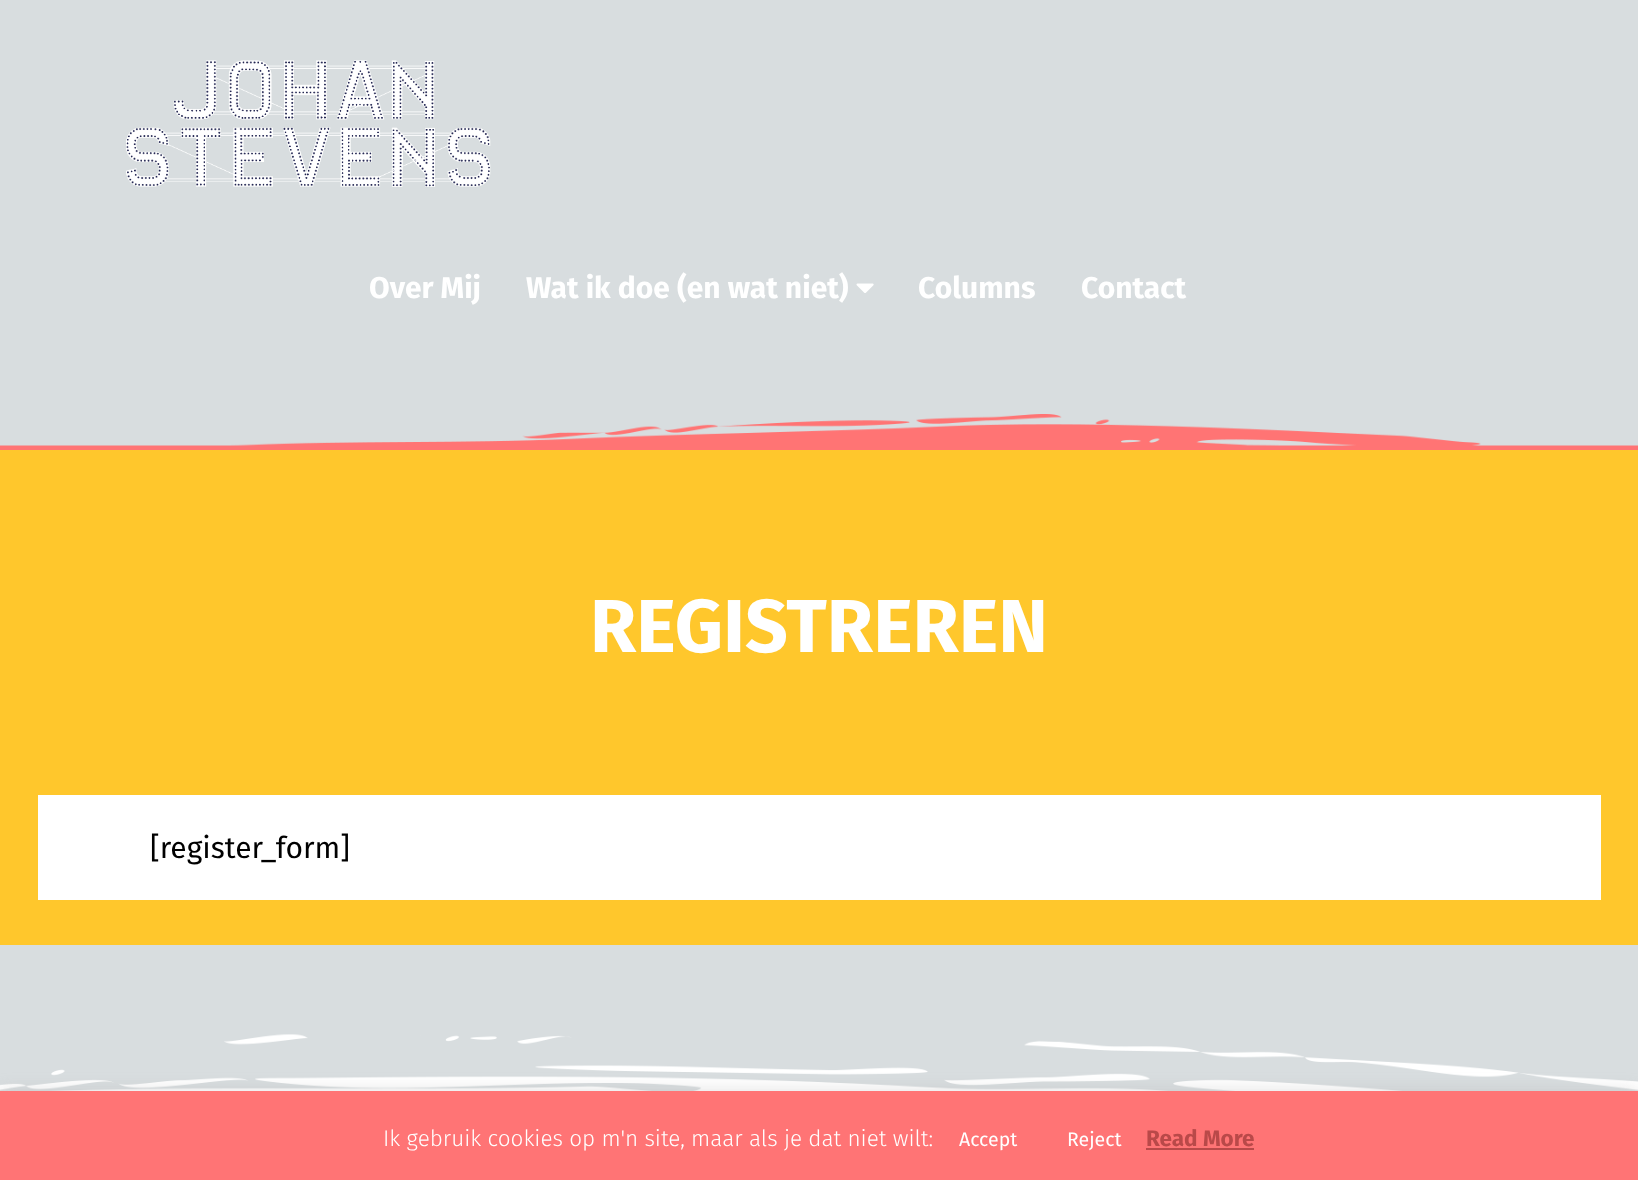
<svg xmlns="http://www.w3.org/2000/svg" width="1638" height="1180">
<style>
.a{font:bold 30px Fira Sans;fill:#fff}
.b{font:bold 75px Fira Sans;fill:#fff}
.c{font:30px Fira Sans;fill:#000}
.d{font:300 22.5px Fira Sans;fill:#fff}
.e{font:19.5px Fira Sans;fill:#fff}
.f{font:bold 22.5px Fira Sans;fill:#b94949}
</style>
<rect width="100%" height="100%" fill="#d8dddf"/>
<image href="1.png" x="126" y="60" width="365" height="127"/>
<image href="2.png" x="856" y="283" width="18" height="10"/>
<image href="3.png" x="0" y="1034" width="1638" height="57"/>
<image href="4.png" x="0" y="414" width="1638" height="36"/>
<path fill="#ffc72c" d="M0 450h1638v495H0z"/>
<path fill="#fff" d="M38 795h1563v105H38z"/>
<path fill="#acabab4d" filter="blur(7.5px)" d="M0 1089h1638v90H0z"/>
<path fill="#ff7475" d="M0 1091h1638v89H0z"/>
<path fill="#b94949" d="M1146 1148h108v2H1146z"/>
<text class="a" x="369" y="298">Over Mij</text>
<text class="a" x="526" y="298">Wat ik doe (en wat niet)</text>
<text class="a" x="918" y="298">Columns</text>
<text class="a" x="1081" y="298">Contact</text>
<text class="b" x="590" y="652">REGISTREREN</text>
<text class="c" x="150" y="858">[register_form]</text>
<text class="d" x="383" y="1146">Ik gebruik cookies op m'n site, maar als je dat niet wilt:</text>
<text class="e" x="959" y="1146">Accept</text>
<text class="e" x="1067" y="1146">Reject</text>
<text class="f" x="1146" y="1146">Read More</text>
</svg>
